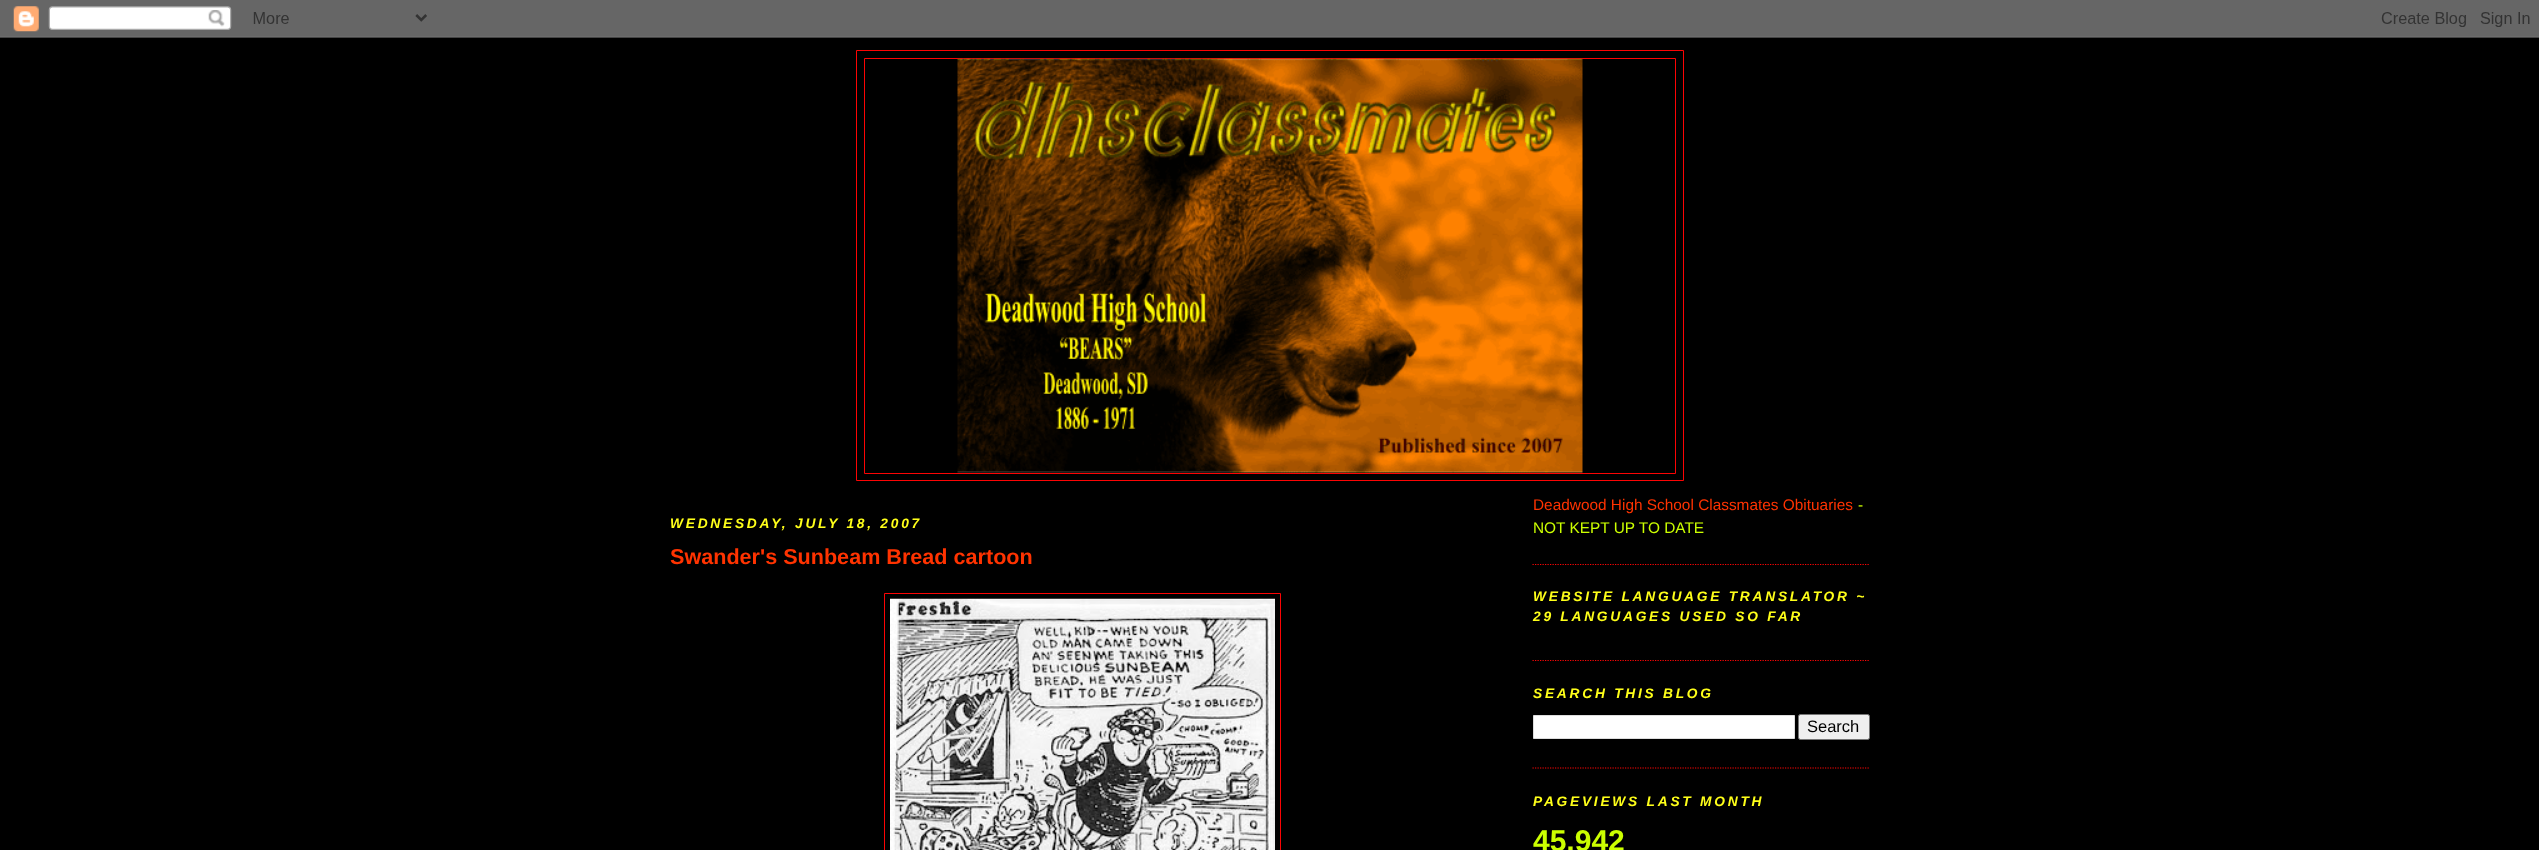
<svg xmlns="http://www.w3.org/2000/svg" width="2539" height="850">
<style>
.a{font:italic bold 13.75px Liberation Sans;letter-spacing:2.75px;fill:#ffff19}
.b{font:bold 21.6px Liberation Sans;fill:#f30}
.c{font:15.4px Liberation Sans;fill:#f30}
.d{font:15.4px Liberation Sans;fill:#cf0}
.e{font:16.5px Liberation Sans;fill:#000}
.f{font:bold 30px Liberation Sans;fill:#cf0}
</style>
<rect width="100%" height="100%" fill="#000"/>
<image href="1.png" x="0" y="0" width="2539" height="38"/>
<path fill="none" stroke="#fc0404" d="M856.5 50.5h827v430H856.5z"/>
<path fill="none" stroke="#fc0404" d="M864.5 58.5h811v415H864.5z"/>
<image href="2.png" x="957" y="58" width="626" height="415"/>
<path fill="none" stroke="#fc0404" d="M884.5 593.5h396v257H884.5z"/>
<image href="3.png" x="890" y="598" width="385" height="252"/>
<path fill="none" stroke="#fc0404" stroke-width="1.2" stroke-dasharray="1.25 1.25" d="M1532.5 564.5h337.5"/>
<path fill="none" stroke="#fc0404" stroke-width="1.2" stroke-dasharray="1.25 1.25" d="M1532.5 660.5h337.5"/>
<path fill="none" stroke="#fc0404" stroke-width="1.2" stroke-dasharray="1.25 1.25" d="M1532.5 768h337.5"/>
<path fill="#fff" stroke="#ddd" d="M1533.5 715.5h261v23H1533.5z"/>
<rect fill="#efefef" stroke="#767676" x="1798.5" y="714.5" width="71" height="25" rx="2"/>
<text class="a" x="670" y="528">WEDNESDAY, JULY 18, 2007</text>
<text class="b" x="670" y="564">Swander's Sunbeam Bread cartoon</text>
<text class="c" x="1533" y="510">Deadwood High School Classmates Obituaries</text>
<text class="d" x="1858" y="510">-</text>
<text class="d" x="1533" y="533">NOT KEPT UP TO DATE</text>
<text class="a" x="1533" y="601">WEBSITE LANGUAGE TRANSLATOR ~</text>
<text class="a" x="1533" y="621">29 LANGUAGES USED SO FAR</text>
<text class="a" x="1533" y="698">SEARCH THIS BLOG</text>
<text class="e" x="1807" y="732">Search</text>
<text class="a" x="1533" y="806">PAGEVIEWS LAST MONTH</text>
<text class="f" x="1533" y="851">45,942</text>
</svg>
